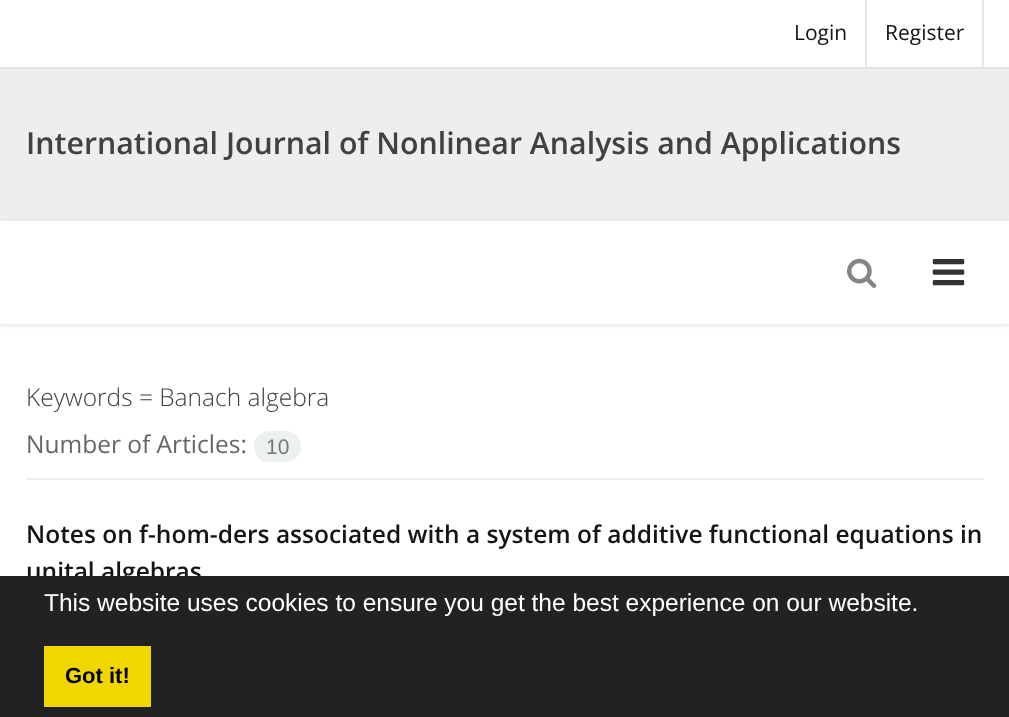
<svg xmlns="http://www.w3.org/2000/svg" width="1009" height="717">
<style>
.a{font:21px Open Sans;fill:#151515}
.b{font:600 30.3px Open Sans;fill:#414141}
.c{font:300 24.5px Open Sans;fill:#414141}
.d{font:24.5px Open Sans;fill:#666}
.e{font:21px Liberation Sans;fill:#777}
.f{font:600 24.5px Open Sans;fill:#151515}
.g{font:24.5px Liberation Sans;fill:#fff}
.h{font:bold 22px Liberation Sans;fill:#000}
</style>
<rect width="100%" height="100%" fill="#fff"/>
<path fill="#f2f2f2" d="M0 219h1009v2H0z"/>
<path fill="#e6e6e6" d="M865 0h2v67H865z"/>
<path fill="#e6e6e6" d="M982 0h2v67H982z"/>
<path fill="#eee" d="M0 69h1009v150H0z"/>
<path fill="#e2e2e2" d="M0 67h1009v2H0z"/>
<path fill="#0000001a" filter="blur(2px)" d="M0 221h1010v105H0z"/>
<path fill="#fff" d="M0 221h1009v103H0z"/>
<path fill="#f2f2f2" d="M0 324h1009v2H0z"/>
<image href="1.png" x="847" y="258" width="30" height="30"/>
<image href="2.png" x="932" y="259" width="33" height="27"/>
<path fill="#eee" d="M26 478h958v2H26z"/>
<rect fill="#ecf0f1" x="254" y="431" width="47" height="31" rx="15.5"/>
<text class="a" x="794" y="40">Login</text>
<text class="a" x="885" y="40">Register</text>
<text class="b" x="26" y="154">International Journal of Nonlinear Analysis and Applications</text>
<text class="c" x="26" y="406">Keywords = Banach algebra</text>
<text class="d" x="26" y="453">Number of Articles:</text>
<text class="e" x="266" y="454">10</text>
<text class="f" x="26" y="543">Notes on f-hom-ders associated with a system of additive functional equations in</text>
<text class="f" x="26" y="580">unital algebras</text>
<path fill="#222" d="M0 576h1009v141H0z"/>
<text class="g" x="44" y="611">This website uses cookies to ensure you get the best experience on our website.</text>
<path fill="#f1d600" d="M44 646h107v61H44z"/>
<text class="h" x="65" y="683">Got it!</text>
</svg>
